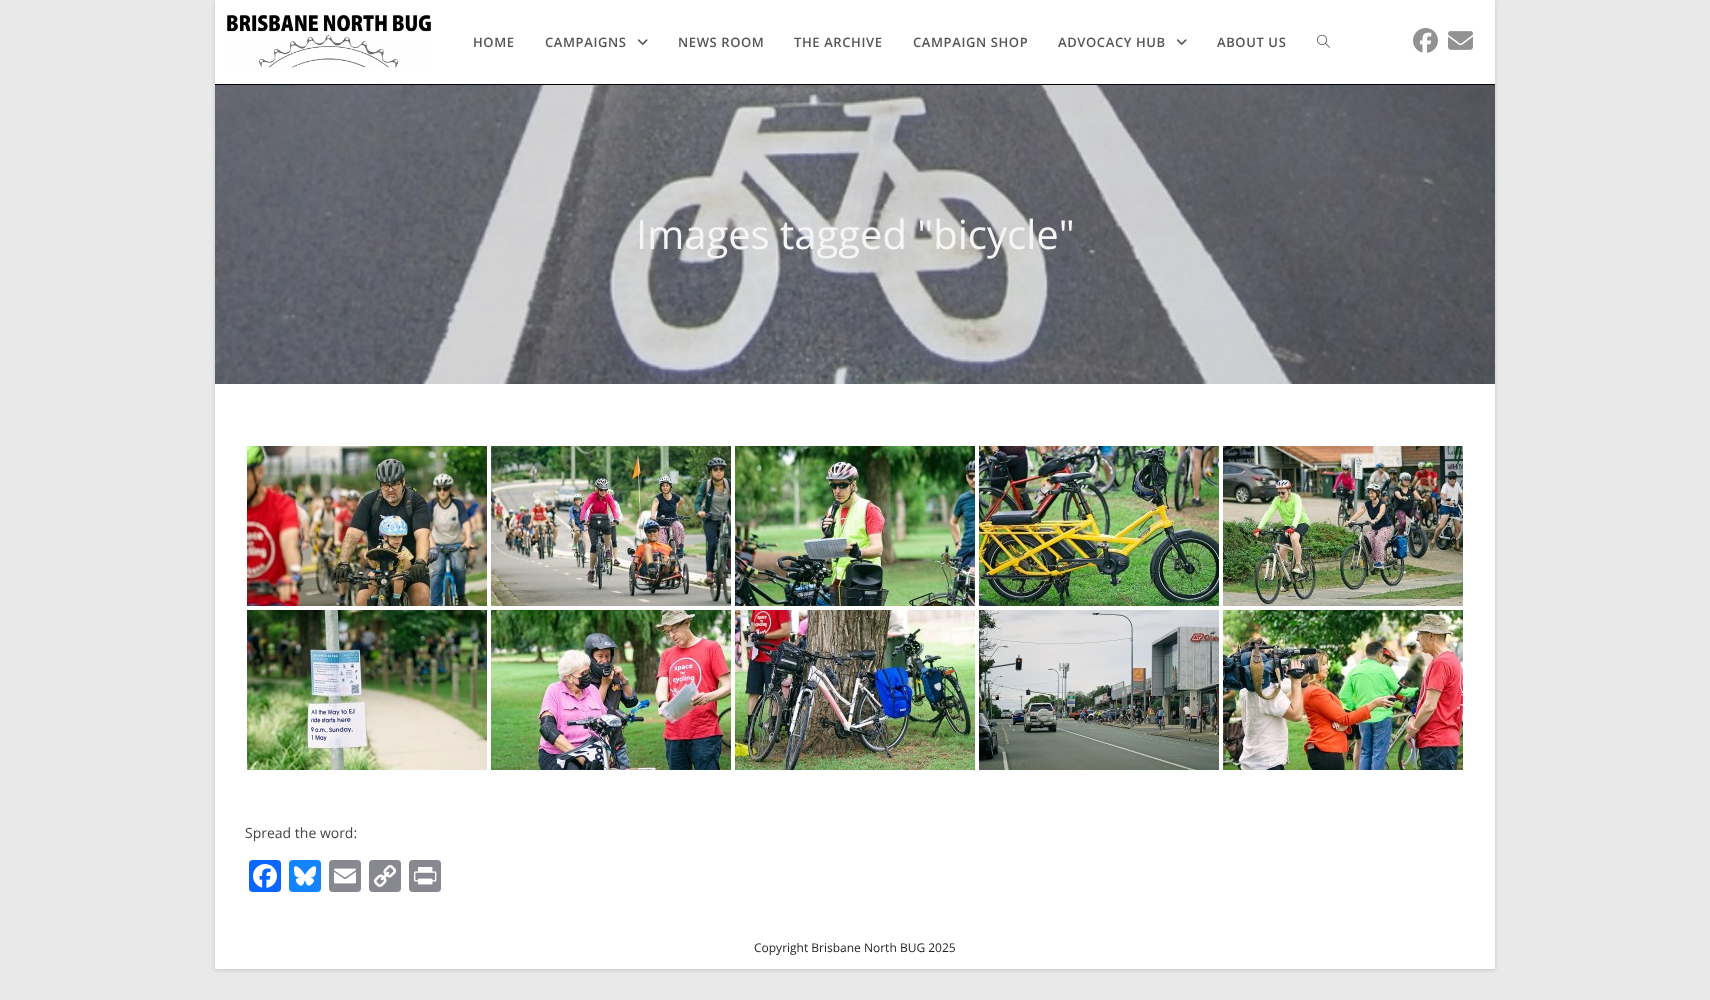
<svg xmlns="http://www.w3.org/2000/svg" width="1710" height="1000">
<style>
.a{font:600 13px Open Sans;letter-spacing:0.6px;fill:#555}
.b{font:40px Open Sans;fill:#f5f5f5}
.c{font:14px Open Sans;fill:#444}
.d{font:12px Open Sans;fill:#1f1f1f}
</style>
<rect width="100%" height="100%" fill="#e9e9e9"/>
<path fill="#00000026" filter="blur(2px)" d="M215 1h1280v969H215z"/>
<path fill="#fff" d="M215 0h1280v969H215z"/>
<image href="1.png" x="227" y="15" width="204" height="53"/>
<image href="2.png" x="637" y="39" width="11" height="6"/>
<image href="2.png" x="1176" y="39" width="11" height="6"/>
<image href="3.png" x="1317" y="34" width="13" height="14"/>
<image href="4.png" x="1413" y="28" width="25" height="25"/>
<image href="5.png" x="1448" y="31" width="25" height="19"/>
<path fill="#000" d="M215 84h1280v1H215z"/>
<image href="6.png" x="215" y="85" width="1280" height="299"/>
<image href="7.png" x="247" y="446" width="240" height="160"/>
<image href="8.png" x="491" y="446" width="240" height="160"/>
<image href="9.png" x="735" y="446" width="240" height="160"/>
<image href="10.png" x="979" y="446" width="240" height="160"/>
<image href="11.png" x="1223" y="446" width="240" height="160"/>
<image href="12.png" x="247" y="610" width="240" height="160"/>
<image href="13.png" x="491" y="610" width="240" height="160"/>
<image href="14.png" x="735" y="610" width="240" height="160"/>
<image href="15.png" x="979" y="610" width="240" height="160"/>
<image href="16.png" x="1223" y="610" width="240" height="160"/>
<rect fill="#0866ff" x="249" y="860" width="32" height="32" rx="4"/>
<image href="17.png" x="253" y="864" width="24" height="24"/>
<rect fill="#1285fe" x="289" y="860" width="32" height="32" rx="4"/>
<image href="18.png" x="294" y="866" width="22" height="20"/>
<rect fill="#888990" x="329" y="860" width="32" height="32" rx="4"/>
<image href="19.png" x="334" y="868" width="22" height="16"/>
<rect fill="#888990" x="369" y="860" width="32" height="32" rx="4"/>
<image href="20.png" x="374" y="865" width="22" height="22"/>
<rect fill="#888990" x="409" y="860" width="32" height="32" rx="4"/>
<image href="21.png" x="414" y="867" width="23" height="18"/>
<text class="a" x="473" y="47">HOME</text>
<text class="a" x="545" y="47">CAMPAIGNS</text>
<text class="a" x="678" y="47">NEWS ROOM</text>
<text class="a" x="794" y="47">THE ARCHIVE</text>
<text class="a" x="913" y="47">CAMPAIGN SHOP</text>
<text class="a" x="1058" y="47">ADVOCACY HUB</text>
<text class="a" x="1217" y="47">ABOUT US</text>
<text class="b" x="636" y="249">Images tagged "bicycle"</text>
<text class="c" x="245" y="838">Spread the word:</text>
<text class="d" x="754" y="952">Copyright Brisbane North BUG 2025</text>
</svg>
